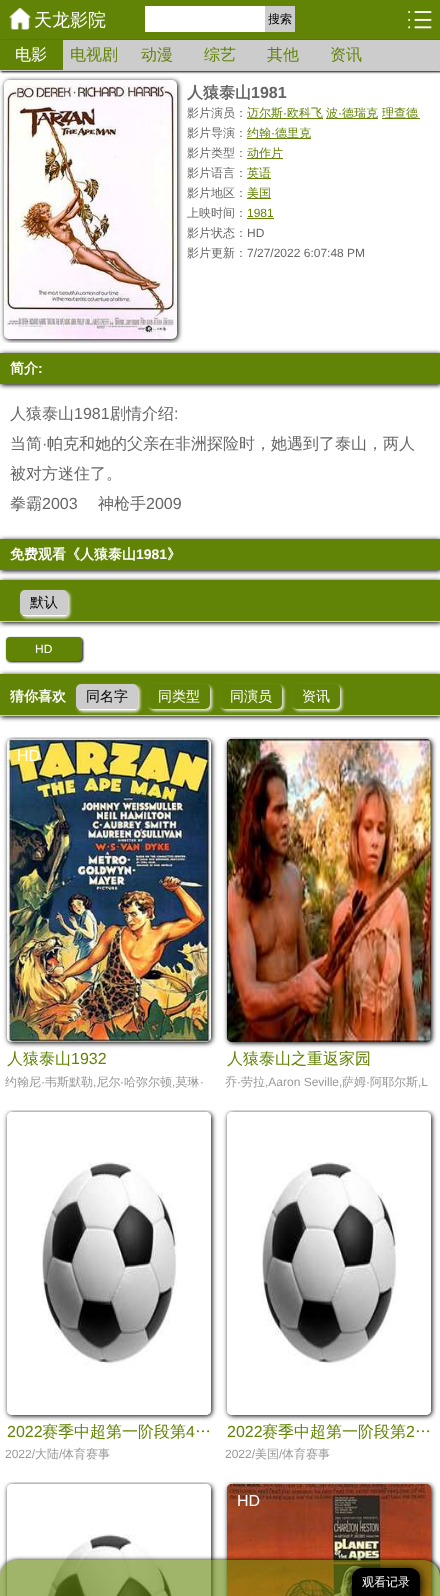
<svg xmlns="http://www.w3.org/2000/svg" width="440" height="1596">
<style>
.a{font:500 18px WenQuanYi Zen Hei;fill:#fff}
.b{font:500 12px WenQuanYi Zen Hei;fill:#000}
.c{font:500 16px WenQuanYi Zen Hei;fill:#fff}
.d{font:500 16px WenQuanYi Zen Hei;fill:#628406}
.e{font:bold 16px WenQuanYi Zen Hei;fill:#666}
.f{font:bold 16px Liberation Sans;fill:#666}
.g{font:500 12px WenQuanYi Zen Hei;fill:#666}
.h{font:500 12px WenQuanYi Zen Hei;fill:#628406}
.i{font:12px Liberation Sans;fill:#628406}
.j{font:12px Liberation Sans;fill:#666}
.k{font:bold 14px WenQuanYi Zen Hei;fill:#fff}
.l{font:bold 14px Liberation Sans;fill:#fff}
.m{font:500 16px WenQuanYi Zen Hei;fill:#666}
.n{font:16px Liberation Sans;fill:#666}
.o{font:500 14px WenQuanYi Zen Hei;fill:#000}
.p{font:12px Liberation Sans;fill:#fff}
.q{font:500 14px WenQuanYi Zen Hei;fill:#fff}
.r{font:16px Liberation Sans;fill:#fff}
.s{font:16px Liberation Sans;fill:#628406}
.t{font:500 12px WenQuanYi Zen Hei;fill:#999}
.u{font:12px Liberation Sans;fill:#999}
.v{font:500 12px WenQuanYi Zen Hei;fill:#fff}
</style>
<defs>
<clipPath id="clip1"><path d="M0 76h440v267H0z"/></clipPath>
<clipPath id="clip2"><path d="M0 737h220v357H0z"/></clipPath>
<clipPath id="clip3"><path d="M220 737h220v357H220z"/></clipPath>
<clipPath id="clip4"><path d="M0 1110h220v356H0z"/></clipPath>
<clipPath id="clip5"><path d="M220 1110h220v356H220z"/></clipPath>
<clipPath id="clip6"><path d="M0 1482h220v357H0z"/></clipPath>
<clipPath id="clip7"><path d="M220 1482h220v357H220z"/></clipPath>
<clipPath id="clip8"><path d="M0 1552h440v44h-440zm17 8h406c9.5 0 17 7.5 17 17v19h-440v-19c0-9.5 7.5-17 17-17z" clip-rule="evenodd"/></clipPath>
</defs>
<rect width="100%" height="100%" fill="#fff"/>
<path fill="#628406" d="M0 0h440v40H0z"/>
<image href="1.png" x="9" y="8" width="22" height="22"/>
<path fill="#fff" d="M145 6h120v26H145z"/>
<path fill="#ccc" d="M265 6h30v26H265z"/>
<image href="2.png" x="408" y="11" width="24" height="18"/>
<path fill="#000" filter="blur(1px)" d="M1 41h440v31H1z"/>
<path fill="#ccc" d="M0 40h440v31H0z"/>
<path fill="#628406" d="M0 40h63v30H0z"/>
<g clip-path="url(#clip1)">
<rect fill="#000" filter="blur(2.5px)" x="5" y="81" width="173" height="259" rx="5"/>
</g>
<image href="3.png" x="4" y="80" width="173" height="259"/>
<path fill="#628406" d="M247 118h76v1H247z"/>
<path fill="#628406" d="M326 118h52v1H326z"/>
<path fill="#628406" d="M382 118h38v1H382z"/>
<path fill="#628406" d="M247 138h64v1H247z"/>
<path fill="#628406" d="M247 158h36v1H247z"/>
<path fill="#628406" d="M247 178h24v1H247z"/>
<path fill="#628406" d="M247 198h24v1H247z"/>
<path fill="#628406" d="M247 218h27v1H247z"/>
<path fill="#000" filter="blur(2.5px)" d="M1 354h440v31H1z"/>
<path fill="#628406" d="M0 353h440v31H0z"/>
<path fill="#000" filter="blur(2.5px)" d="M1 540h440v31H1z"/>
<path fill="#628406" d="M0 539h440v31H0z"/>
<path fill="#000" filter="blur(2.5px)" d="M1 581h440v42H1z"/>
<path fill="#628406" d="M0 580h440v41H0z"/>
<path fill="#ccc" d="M0 621h440v1H0z"/>
<rect fill="#e8e8e8" filter="blur(1.5px)" x="22" y="592" width="48" height="26" rx="5"/>
<rect fill="#ccc" x="20" y="590" width="48" height="26" rx="5"/>
<path fill="#fff" d="M23 615h43v1H23z"/>
<rect fill="#000" filter="blur(1px)" x="7" y="638" width="76" height="24" rx="4"/>
<rect fill="#628406" x="6" y="637" width="76" height="24" rx="4"/>
<path fill="#000" filter="blur(2.5px)" d="M1 675h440v42H1z"/>
<path fill="#628406" d="M0 674h440v41H0z"/>
<path fill="#ccc" d="M0 715h440v1H0z"/>
<rect fill="#e8e8e8" filter="blur(1.5px)" x="78" y="686" width="62" height="26" rx="5"/>
<rect fill="#ccc" x="76" y="684" width="62" height="26" rx="5"/>
<path fill="#fff" d="M79 709h57v1H79z"/>
<rect fill="#e8e8e8" filter="blur(1.5px)" x="150" y="686" width="62" height="25" rx="5"/>
<rect fill="#628406" x="148" y="684" width="62" height="25" rx="5"/>
<rect fill="#e8e8e8" filter="blur(1.5px)" x="222" y="686" width="62" height="25" rx="5"/>
<rect fill="#628406" x="220" y="684" width="62" height="25" rx="5"/>
<rect fill="#e8e8e8" filter="blur(1.5px)" x="294" y="686" width="48" height="25" rx="5"/>
<rect fill="#628406" x="292" y="684" width="48" height="25" rx="5"/>
<g clip-path="url(#clip2)">
<rect fill="#000" filter="blur(2.5px)" x="8" y="740" width="204" height="303" rx="5"/>
</g>
<image href="4.png" x="7" y="739" width="204" height="303"/>
<image href="5.png" x="7" y="739" width="204" height="303"/>
<g clip-path="url(#clip3)">
<rect fill="#000" filter="blur(2.5px)" x="228" y="740" width="204" height="303" rx="5"/>
</g>
<image href="6.png" x="227" y="739" width="204" height="303"/>
<image href="7.png" x="227" y="739" width="204" height="303"/>
<g clip-path="url(#clip4)">
<rect fill="#000" filter="blur(2.5px)" x="8" y="1113" width="204" height="303" rx="5"/>
</g>
<image href="8.png" x="7" y="1112" width="204" height="303"/>
<image href="9.png" x="7" y="1112" width="204" height="303"/>
<g clip-path="url(#clip5)">
<rect fill="#000" filter="blur(2.5px)" x="228" y="1113" width="204" height="303" rx="5"/>
</g>
<image href="10.png" x="227" y="1112" width="204" height="303"/>
<image href="11.png" x="227" y="1112" width="204" height="303"/>
<g clip-path="url(#clip6)">
<rect fill="#000" filter="blur(2.5px)" x="8" y="1485" width="204" height="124" rx="5"/>
</g>
<image href="12.png" x="7" y="1484" width="204" height="112"/>
<image href="13.png" x="7" y="1484" width="204" height="4"/>
<g clip-path="url(#clip7)">
<rect fill="#000" filter="blur(2.5px)" x="228" y="1485" width="204" height="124" rx="5"/>
</g>
<image href="14.png" x="227" y="1484" width="204" height="112"/>
<image href="15.png" x="227" y="1484" width="204" height="5"/>
<g clip-path="url(#clip8)">
<rect fill="#00000099" filter="blur(2.5px)" x="1" y="1561" width="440" height="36" rx="17"/>
</g>
<path fill="#62840699" d="M17 1560h406c9.5 0 17 7.5 17 17v19h-440v-19c0-9.5 7.5-17 17-17z"/>
<g clip-path="url(#clip8)">
<rect fill="#000" filter="blur(2.5px)" x="1" y="1561" width="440" height="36" rx="17"/>
</g>
<rect fill="#000" filter="blur(5px)" x="353" y="1569" width="68" height="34" rx="10"/>
<path fill="#000" d="M362 1568h48c5.5 0 10 4.5 10 10v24h-68v-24c0-5.5 4.5-10 10-10z"/>
<text class="a" x="34" y="26">天龙影院</text>
<text class="b" x="268" y="23">搜索</text>
<text class="c" x="15" y="60">电影</text>
<text class="d" x="70" y="60">电视剧</text>
<text class="d" x="141" y="60">动漫</text>
<text class="d" x="204" y="60">综艺</text>
<text class="d" x="267" y="60">其他</text>
<text class="d" x="330" y="60">资讯</text>
<text class="e" x="187" y="98">人猿泰山</text>
<text class="f" x="251" y="98">1981</text>
<text class="g" x="187" y="117">影片演员：</text>
<text class="h" x="247" y="117">迈尔斯</text>
<text class="i" x="283" y="117">·</text>
<text class="h" x="287" y="117">欧科飞</text>
<text class="h" x="326" y="117">波</text>
<text class="i" x="338" y="117">·</text>
<text class="h" x="342" y="117">德瑞克</text>
<text class="h" x="382" y="117">理查德</text>
<text class="g" x="187" y="137">影片导演：</text>
<text class="h" x="247" y="137">约翰</text>
<text class="i" x="271" y="137">·</text>
<text class="h" x="275" y="137">德里克</text>
<text class="g" x="187" y="157">影片类型：</text>
<text class="h" x="247" y="157">动作片</text>
<text class="g" x="187" y="177">影片语言：</text>
<text class="h" x="247" y="177">英语</text>
<text class="g" x="187" y="197">影片地区：</text>
<text class="h" x="247" y="197">美国</text>
<text class="g" x="187" y="217">上映时间：</text>
<text class="i" x="247" y="217">1981</text>
<text class="g" x="187" y="237">影片状态：</text>
<text class="j" x="247" y="237">HD</text>
<text class="g" x="187" y="257">影片更新：</text>
<text class="j" x="247" y="257">7/27/2022 6:07:48 PM</text>
<text class="k" x="10" y="373">简介</text>
<text class="l" x="38" y="373">:</text>
<text class="m" x="10" y="419">人猿泰山</text>
<text class="n" x="74" y="419">1981</text>
<text class="m" x="110" y="419">剧情介绍</text>
<text class="n" x="174" y="419">:</text>
<text class="m" x="10" y="449">当简</text>
<text class="n" x="42" y="449">·</text>
<text class="m" x="47" y="449">帕克和她的父亲在非洲探险时，她遇到了泰山，两人</text>
<text class="m" x="10" y="479">被对方迷住了。</text>
<text class="m" x="10" y="509">拳霸</text>
<text class="n" x="42" y="509">2003</text>
<text class="m" x="98" y="509">神枪手</text>
<text class="n" x="146" y="509">2009</text>
<text class="k" x="10" y="559">免费观看《人猿泰山</text>
<text class="l" x="136" y="559">1981</text>
<text class="k" x="167" y="559">》</text>
<text class="o" x="30" y="607">默认</text>
<text class="p" x="35" y="653">HD</text>
<text class="k" x="10" y="701">猜你喜欢</text>
<text class="o" x="86" y="701">同名字</text>
<text class="q" x="158" y="701">同类型</text>
<text class="q" x="230" y="701">同演员</text>
<text class="q" x="302" y="701">资讯</text>
<text class="r" x="17" y="761">HD</text>
<text class="d" x="7" y="1064">人猿泰山</text>
<text class="s" x="71" y="1064">1932</text>
<text class="t" x="5" y="1086">约翰尼</text>
<text class="u" x="41" y="1086">·</text>
<text class="t" x="45" y="1086">韦斯默勒 尼尔</text>
<text class="u" x="120" y="1086">·</text>
<text class="t" x="124" y="1086">哈弥尔顿 莫琳</text>
<text class="u" x="200" y="1086">·</text>
<text class="u" x="93" y="1086">,</text>
<text class="u" x="172" y="1086">,</text>
<text class="d" x="227" y="1064">人猿泰山之重返家园</text>
<text class="t" x="225" y="1086">乔</text>
<text class="u" x="237" y="1086">·</text>
<text class="t" x="241" y="1086">劳拉</text>
<text class="u" x="265" y="1086">,Aaron Seville,</text>
<text class="t" x="342" y="1086">萨姆</text>
<text class="u" x="366" y="1086">·</text>
<text class="t" x="370" y="1086">阿耶尔斯</text>
<text class="u" x="418" y="1086">,L</text>
<text class="s" x="7" y="1437">2022</text>
<text class="d" x="42" y="1437">赛季中超第一阶段第</text>
<text class="s" x="186" y="1437">4</text>
<text class="d" x="195" y="1437">…</text>
<text class="u" x="5" y="1458">2022/</text>
<text class="t" x="35" y="1458">大陆</text>
<text class="u" x="59" y="1458">/</text>
<text class="t" x="62" y="1458">体育赛事</text>
<text class="s" x="227" y="1437">2022</text>
<text class="d" x="262" y="1437">赛季中超第一阶段第</text>
<text class="s" x="406" y="1437">2</text>
<text class="d" x="415" y="1437">…</text>
<text class="u" x="225" y="1458">2022/</text>
<text class="t" x="255" y="1458">美国</text>
<text class="u" x="279" y="1458">/</text>
<text class="t" x="282" y="1458">体育赛事</text>
<text class="r" x="237" y="1506">HD</text>
<text class="v" x="362" y="1586">观看记录</text>
</svg>
